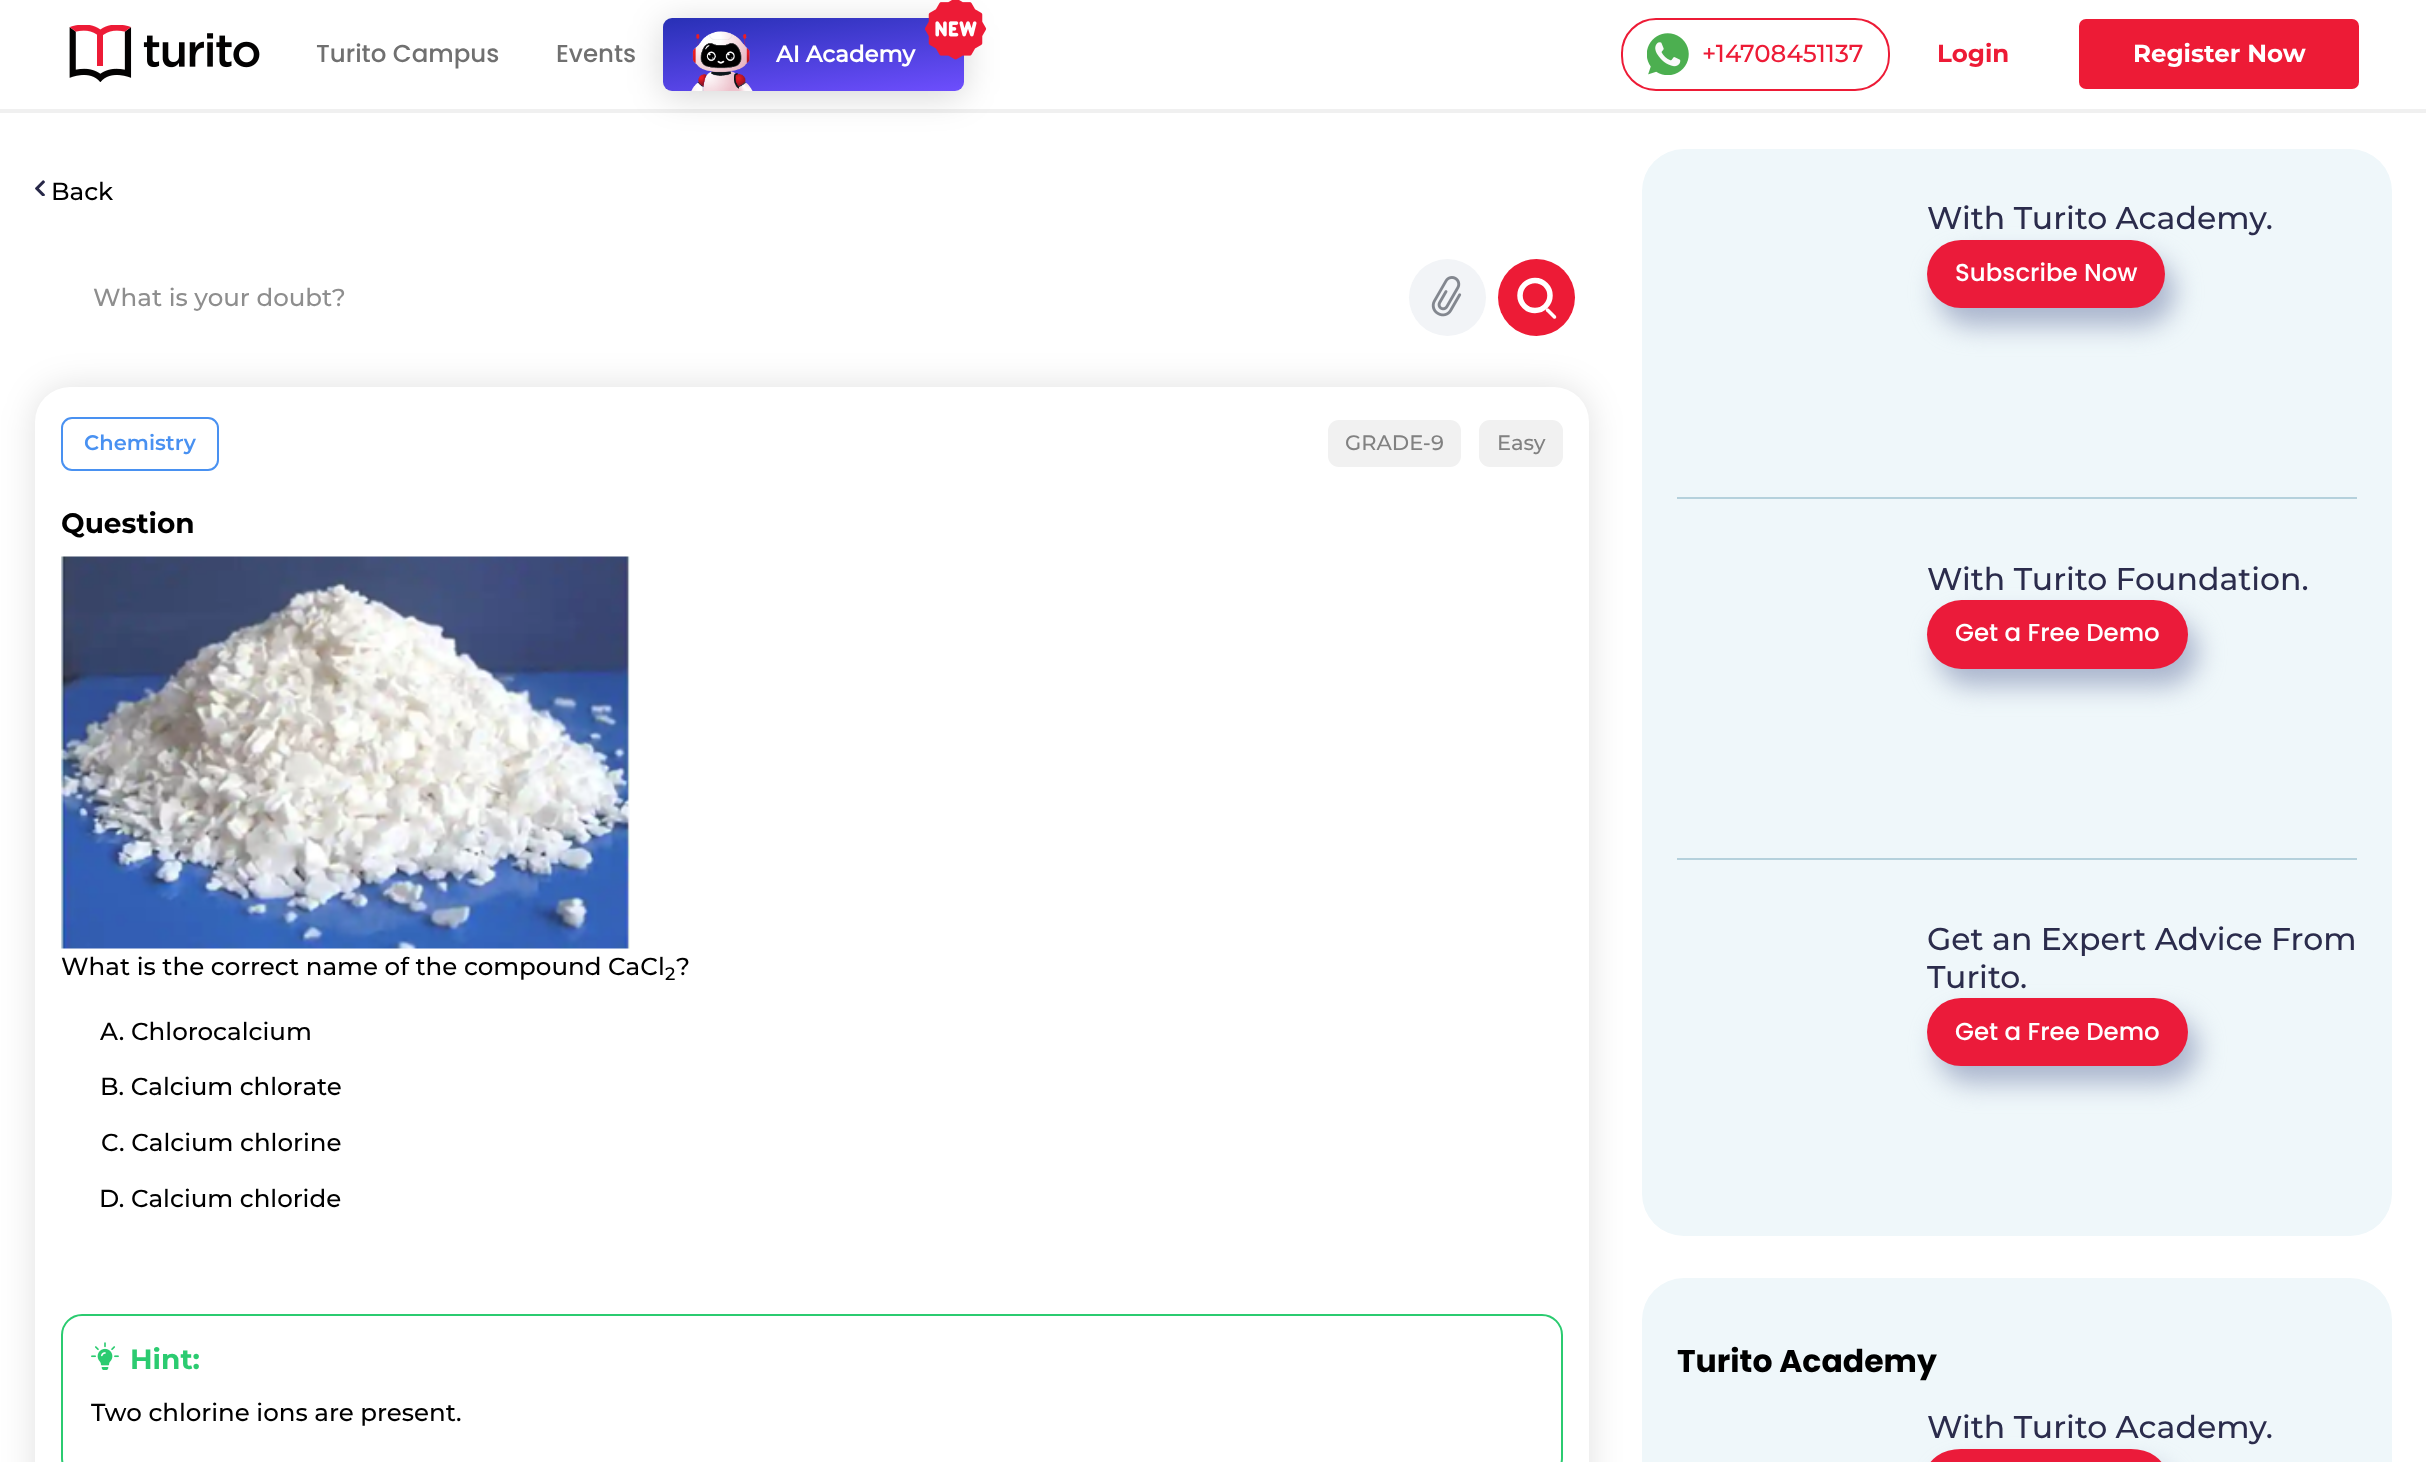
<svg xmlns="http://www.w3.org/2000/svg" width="2426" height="1462">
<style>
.a{font:500 24.5px Poppins;fill:#707070}
.b{font:bold 22.75px 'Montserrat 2';fill:#fff}
.c{font:500 24.5px Montserrat;fill:#ed1b36}
.d{font:bold 24.5px Montserrat;fill:#ed1b36}
.e{font:bold 24.5px Montserrat;fill:#fff}
.f{font:500 24.5px Montserrat;fill:#000}
.g{font:500 24.5px Montserrat;fill:#8e8e8e}
.h{font:600 21px Montserrat;fill:#4991f1}
.i{font:500 21px Montserrat;fill:#818181}
.j{font:bold 28px Montserrat;fill:#000}
.k{font:500 18px Montserrat;fill:#000}
.l{font:bold 28px Montserrat;fill:#2bcb70}
.m{font:500 31.5px Montserrat;fill:#2b2c4c}
.n{font:500 24.5px Poppins;fill:#fff}
.o{font:bold 31.5px Poppins;fill:#000}
</style>
<defs>
<linearGradient id="g1" gradientUnits="userSpaceOnUse" x1="803" y1="-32" x2="820" y2="109"><stop offset="0" stop-color="#1327a0"/><stop offset="0.99" stop-color="#6d4efd"/></linearGradient>
</defs>
<rect width="100%" height="100%" fill="#fff"/>
<path fill="#f0f0f0" d="M0 109h2426v4H0z"/>
<image href="1.png" x="69" y="25" width="191" height="57"/>
<rect fill="#00000029" filter="blur(17.5px)" x="663" y="23" width="301" height="73" rx="9"/>
<rect fill="url(#g1)" x="663" y="18" width="301" height="73" rx="9"/>
<image href="2.png" x="691" y="31" width="62" height="60"/>
<image href="3.png" x="924" y="0" width="63" height="60"/>
<rect fill="none" stroke="#ed1b36" stroke-width="2" x="1622" y="19" width="267" height="71" rx="34"/>
<image href="4.png" x="1647" y="33" width="42" height="42"/>
<rect fill="#ed1b36" x="2079" y="19" width="280" height="70" rx="7"/>
<image href="5.png" x="35" y="180" width="10" height="16"/>
<rect fill="#0000001f" filter="blur(17.5px)" x="35" y="387" width="1554" height="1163" rx="35"/>
<circle fill="#f2f4f7" cx="1447.5" cy="297.5" r="38.5"/>
<image href="6.png" x="1431" y="276" width="31" height="41"/>
<circle fill="#ed1b36" cx="1536.5" cy="297.5" r="38.5"/>
<circle fill="none" stroke="#fff" stroke-width="3.5" cx="1535" cy="295.5" r="16"/>
<circle fill="none" stroke="#fff" stroke-width="3.5" cx="1535" cy="295.5" r="14"/>
<path fill="none" stroke="#fff" stroke-width="3.5" stroke-linecap="round" d="M1547.5 310l7 7"/>
<rect fill="#fff" x="35" y="387" width="1554" height="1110" rx="35"/>
<rect fill="none" stroke="#4991f1" stroke-width="2" x="62" y="418" width="156" height="52" rx="10"/>
<rect fill="#f1f1f1" x="1328" y="420" width="133" height="47" rx="11"/>
<rect fill="#f1f1f1" x="1479" y="420" width="84" height="47" rx="11"/>
<image href="7.png" x="61" y="556" width="569" height="393"/>
<rect fill="none" stroke="#2bcb70" stroke-width="2" x="62" y="1315" width="1500" height="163" rx="20"/>
<image href="8.png" x="91" y="1342" width="28" height="28"/>
<rect fill="#eff7fa" x="1642" y="149" width="750" height="1087" rx="42"/>
<path fill="#b5d1dc" d="M1677 497h680v2H1677z"/>
<rect fill="#aab5cd" filter="blur(13px)" x="1937" y="257" width="238" height="69" rx="34.5"/>
<rect fill="#eb1b3a" x="1927" y="240" width="238" height="68" rx="34"/>
<path fill="#b5d1dc" d="M1677 858h680v2H1677z"/>
<rect fill="#aab5cd" filter="blur(13px)" x="1937" y="618" width="261" height="68" rx="34"/>
<rect fill="#eb1b3a" x="1927" y="600" width="261" height="69" rx="34.5"/>
<rect fill="#aab5cd" filter="blur(13px)" x="1937" y="1015" width="261" height="68" rx="34"/>
<rect fill="#eb1b3a" x="1927" y="998" width="261" height="68" rx="34"/>
<rect fill="#eff7fa" x="1642" y="1278" width="750" height="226" rx="42"/>
<rect fill="#aab5cd" filter="blur(13px)" x="1937" y="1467" width="238" height="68" rx="34"/>
<rect fill="#eb1b3a" x="1927" y="1449" width="238" height="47" rx="34"/>
<text class="a" x="316" y="62">Turito Campus</text>
<text class="a" x="556" y="62">Events</text>
<text class="b" x="776" y="62">AI Academy</text>
<text class="c" x="1702" y="62">+14708451137</text>
<text class="d" x="1937" y="62">Login</text>
<text class="e" x="2133" y="62">Register Now</text>
<text class="f" x="51" y="200">Back</text>
<text class="g" x="93" y="306">What is your doubt?</text>
<text class="h" x="84" y="450">Chemistry</text>
<text class="i" x="1345" y="450">GRADE-9</text>
<text class="i" x="1497" y="450">Easy</text>
<text class="j" x="61" y="533">Question</text>
<text class="f" x="61" y="975">What is the correct name of the compound CaCl</text>
<text class="k" x="665" y="980">2</text>
<text class="f" x="676" y="975">?</text>
<text class="f" x="100" y="1040">A. Chlorocalcium</text>
<text class="f" x="100" y="1095">B. Calcium chlorate</text>
<text class="f" x="101" y="1151">C. Calcium chlorine</text>
<text class="f" x="99" y="1207">D. Calcium chloride</text>
<text class="l" x="130" y="1369">Hint:</text>
<text class="f" x="91" y="1421">Two chlorine ions are present.</text>
<text class="m" x="1927" y="229">With Turito Academy.</text>
<text class="n" x="1955" y="281">Subscribe Now</text>
<text class="m" x="1927" y="590">With Turito Foundation.</text>
<text class="n" x="1955" y="641">Get a Free Demo</text>
<text class="m" x="1927" y="950">Get an Expert Advice From</text>
<text class="m" x="1927" y="988">Turito.</text>
<text class="n" x="1955" y="1040">Get a Free Demo</text>
<text class="o" x="1677" y="1372">Turito Academy</text>
<text class="m" x="1927" y="1438">With Turito Academy.</text>
</svg>
